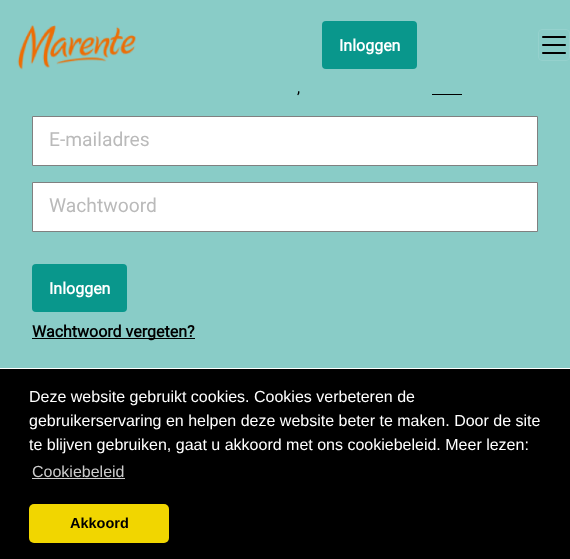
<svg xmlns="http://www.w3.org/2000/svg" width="570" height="559">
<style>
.a{font:bold 16px Roboto;fill:#fff}
.b{font:16px Roboto;fill:#000}
.c{font:19.25px Roboto;fill:#bababa}
.d{font:bold 16px Roboto;fill:#000}
.e{font:16px Liberation Sans;fill:#fff}
.f{font:16px Liberation Sans;fill:#ccc}
.g{font:bold 14.5px Liberation Sans;fill:#000}
</style>
<rect width="100%" height="100%" fill="#fff"/>
<path fill="#89ccc7" d="M0 0h570v368H0z"/>
<image href="1.png" x="17" y="25" width="119" height="45"/>
<rect fill="#09978c" x="322" y="21" width="95" height="48" rx="4"/>
<rect fill="none" stroke="#95d1cd" x="538.5" y="29.5" width="31" height="31" rx="3.5"/>
<image href="2.png" x="542" y="36" width="24" height="18"/>
<path fill="#000" d="M432 94h30v1H432z"/>
<path fill="#fff" stroke="#808080" d="M32.5 116.5h505v49H32.5z"/>
<path fill="#fff" stroke="#808080" d="M32.5 182.5h505v49H32.5z"/>
<rect fill="#09978c" x="32" y="264" width="95" height="48" rx="4"/>
<path fill="#000" d="M32 338h163v1H32z"/>
<path fill="#000" d="M0 369h570v190H0z"/>
<path fill="#ccc" d="M32 478h93v1H32z"/>
<rect fill="#f1d600" x="29" y="504" width="140" height="39" rx="5"/>
<text class="a" x="339" y="51">Inloggen</text>
<text class="b" x="297" y="93">,</text>
<text class="c" x="49" y="146">E-mailadres</text>
<text class="c" x="49" y="212">Wachtwoord</text>
<text class="a" x="49" y="294">Inloggen</text>
<text class="d" x="32" y="337">Wachtwoord vergeten?</text>
<text class="e" x="29" y="402">Deze website gebruikt cookies. Cookies verbeteren de</text>
<text class="e" x="29" y="426">gebruikerservaring en helpen deze website beter te maken. Door de site</text>
<text class="e" x="29" y="450">te blijven gebruiken, gaat u akkoord met ons cookiebeleid. Meer lezen:</text>
<text class="f" x="32" y="477">Cookiebeleid</text>
<text class="g" x="70" y="528">Akkoord</text>
</svg>
